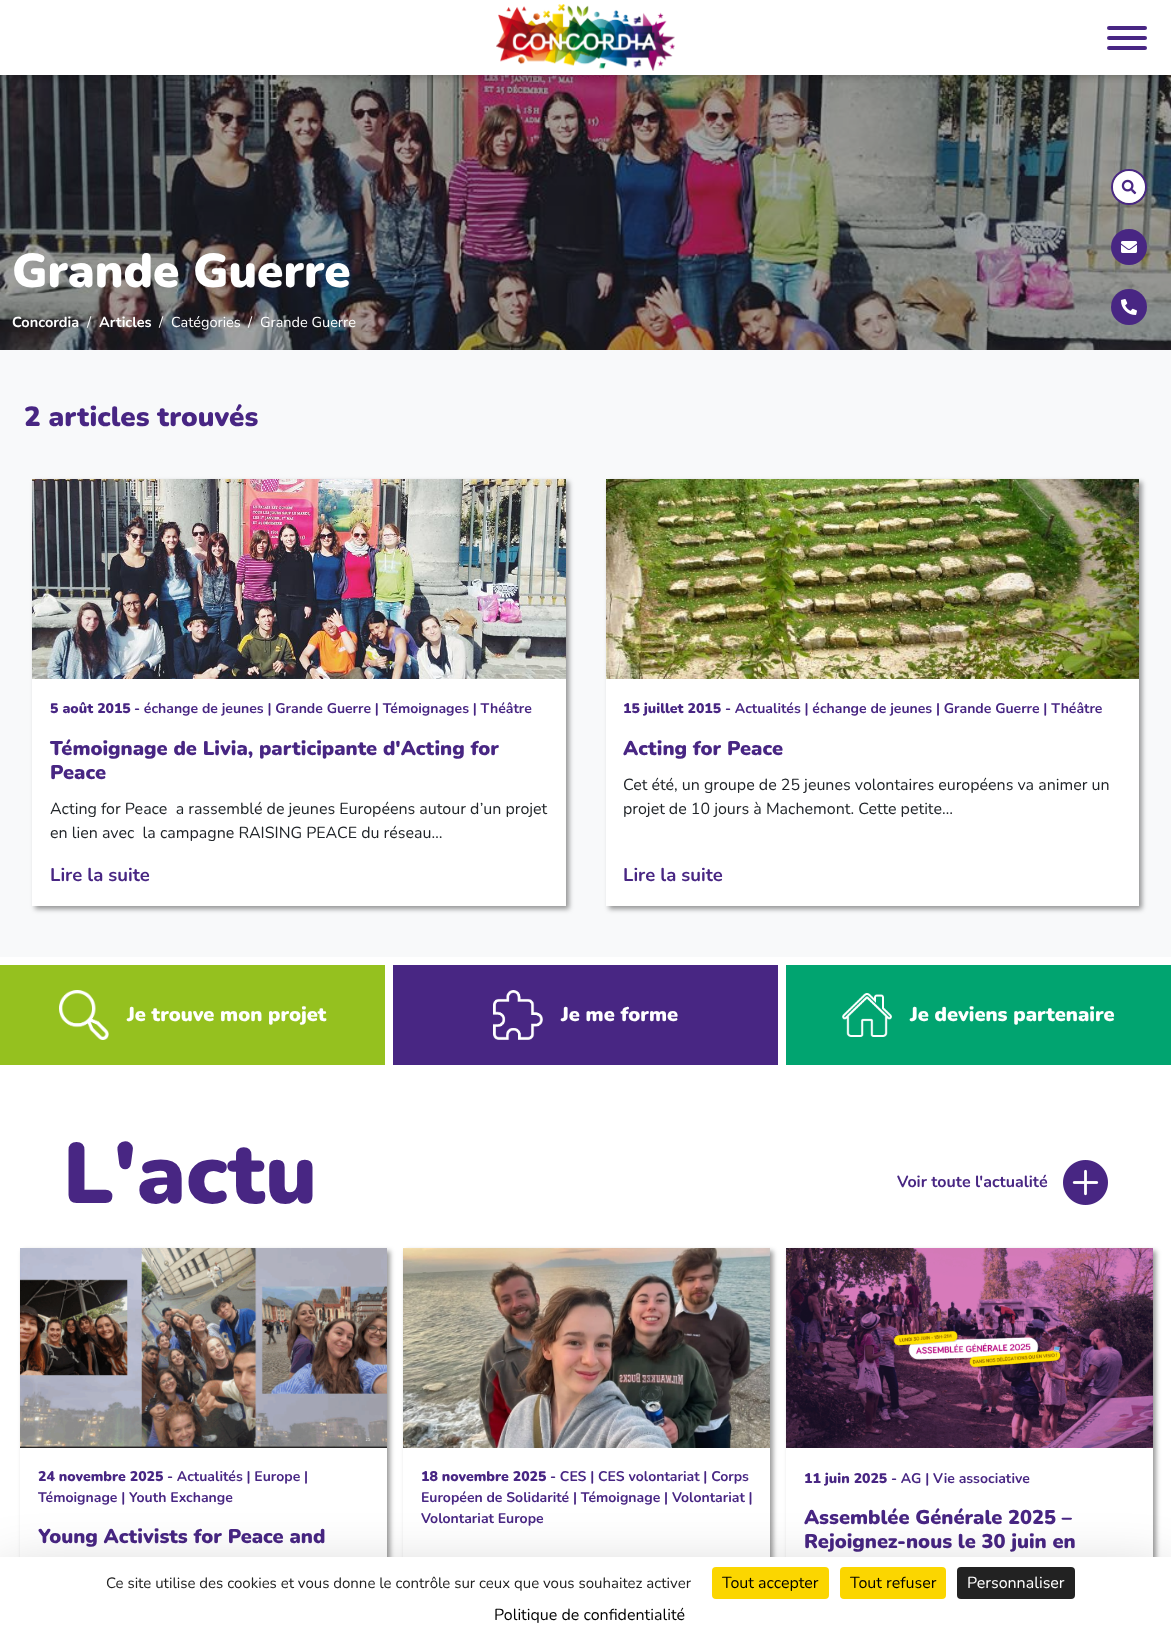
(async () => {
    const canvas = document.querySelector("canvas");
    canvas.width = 1171;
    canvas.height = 1641;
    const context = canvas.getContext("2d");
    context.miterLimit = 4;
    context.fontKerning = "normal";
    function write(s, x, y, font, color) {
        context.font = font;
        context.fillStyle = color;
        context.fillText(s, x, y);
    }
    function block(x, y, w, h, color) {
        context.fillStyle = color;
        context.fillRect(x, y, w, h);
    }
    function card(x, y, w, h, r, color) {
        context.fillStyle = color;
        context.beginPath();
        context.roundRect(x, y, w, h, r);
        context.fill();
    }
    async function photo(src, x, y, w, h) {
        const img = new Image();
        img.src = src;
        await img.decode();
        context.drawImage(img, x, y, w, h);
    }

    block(0, 0, 1171, 1641, "rgb(255, 255, 255)");
    await photo("media/2.png", 0, 75, 1171, 275);
    context.save();
    context.beginPath();
    context.rect(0, 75, 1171, 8);
    context.clip();
    context.fillStyle = "rgba(0, 0, 0, 0.35)";
    context.filter = "blur(5px)";
    context.beginPath();
    context.rect(0, 0, 1171, 75);
    context.fill();
    context.filter = "none";
    context.restore();
    await photo("media/1.png", 496, 4, 179, 67);
    card(1107, 36, 40, 4, 2, "rgb(72, 38, 131)");
    card(1107, 26, 40, 4, 2, "rgb(72, 38, 131)");
    card(1107, 46, 40, 4, 2, "rgb(72, 38, 131)");
    write("Grande Guerre", 12, 287, "900 47.5px Nunito", "rgb(255, 255, 255)");
    write("Concordia", 12, 327, "bold 14.5px Nunito", "rgb(255, 255, 255)");
    write("/", 87, 327, "14.5px Nunito", "rgb(255, 255, 255)");
    write("Articles", 99, 327, "bold 14.5px Nunito", "rgb(255, 255, 255)");
    write("/", 159, 327, "14.5px Nunito", "rgb(255, 255, 255)");
    write("Catégories", 171, 327, "14.5px Nunito", "rgb(255, 255, 255)");
    write("/", 248, 327, "14.5px Nunito", "rgb(255, 255, 255)");
    write("Grande Guerre", 260, 327, "14.5px Nunito", "rgb(255, 255, 255)");
    context.beginPath();
    context.arc(1129, 187, 17, 0, Math.PI * 2);
    context.strokeStyle = "rgb(72, 38, 131)";
    context.lineWidth = 2;
    context.stroke();
    context.beginPath();
    context.arc(1129, 187, 16, 0, Math.PI * 2);
    context.fill();
    await photo("media/3.png", 1121, 179, 16, 16);
    context.fillStyle = "rgb(72, 38, 131)";
    context.beginPath();
    context.arc(1129, 247, 18, 0, Math.PI * 2);
    context.fill();
    await photo("media/4.png", 1121, 241, 16, 12);
    context.beginPath();
    context.arc(1129, 307, 18, 0, Math.PI * 2);
    context.fill();
    await photo("media/5.png", 1121, 299, 16, 16);
    block(0, 350, 1171, 607, "rgb(248, 249, 250)");
    write("2 articles trouvés", 24, 426, "900 27.75px Nunito", "rgb(72, 38, 131)");
    context.fillStyle = "rgba(0, 0, 0, 0.4)";
    context.filter = "blur(2.5px)";
    context.beginPath();
    context.rect(35, 482, 534, 427);
    context.fill();
    context.filter = "none";
    block(32, 679, 534, 227, "rgb(255, 255, 255)");
    await photo("media/6.png", 32, 479, 534, 200);
    write("5 août 2015", 50, 713, "900 14px Nunito", "rgb(72, 38, 131)");
    write("- échange de jeunes | Grande Guerre | Témoignages | Théâtre", 134, 713, "bold 14px Nunito", "rgb(72, 38, 131)");
    write("Témoignage de Livia, participante d'Acting for", 50, 755, "900 20px Nunito", "rgb(72, 38, 131)");
    write("Peace", 50, 779, "900 20px Nunito", "rgb(72, 38, 131)");
    write("Acting for Peace  a rassemblé de jeunes Européens autour d’un projet", 50, 814, "16px Nunito", "rgb(33, 37, 41)");
    write("en lien avec  la campagne RAISING PEACE du réseau…", 50, 838, "16px Nunito", "rgb(33, 37, 41)");
    write("Lire la suite", 50, 881, "bold 18.5px Nunito", "rgb(72, 38, 131)");
    context.fillStyle = "rgba(0, 0, 0, 0.4)";
    context.filter = "blur(2.5px)";
    context.beginPath();
    context.rect(609, 482, 533, 427);
    context.fill();
    context.filter = "none";
    block(606, 679, 533, 227, "rgb(255, 255, 255)");
    await photo("media/7.png", 606, 479, 533, 200);
    write("15 juillet 2015", 623, 713, "900 14px Nunito", "rgb(72, 38, 131)");
    write("- Actualités | échange de jeunes | Grande Guerre | Théâtre", 725, 713, "bold 14px Nunito", "rgb(72, 38, 131)");
    write("Acting for Peace", 623, 755, "900 20px Nunito", "rgb(72, 38, 131)");
    write("Cet été, un groupe de 25 jeunes volontaires européens va animer un", 623, 790, "16px Nunito", "rgb(33, 37, 41)");
    write("projet de 10 jours à Machemont. Cette petite…", 623, 814, "16px Nunito", "rgb(33, 37, 41)");
    write("Lire la suite", 623, 881, "bold 18.5px Nunito", "rgb(72, 38, 131)");
    block(0, 965, 385, 100, "rgb(149, 193, 31)");
    await photo("media/8.png", 59, 990, 50, 50);
    write("Je trouve mon projet", 127, 1021, "900 20px Nunito", "rgb(255, 255, 255)");
    block(393, 965, 385, 100, "rgb(72, 38, 131)");
    await photo("media/9.png", 493, 990, 50, 50);
    write("Je me forme", 561, 1021, "900 20px Nunito", "rgb(255, 255, 255)");
    block(786, 965, 385, 100, "rgb(1, 164, 112)");
    await photo("media/10.png", 842, 993, 50, 44);
    write("Je deviens partenaire", 910, 1021, "900 20px Nunito", "rgb(255, 255, 255)");
    write("L'actu", 63, 1203, "900 86.5px Nunito", "rgb(72, 38, 131)");
    write("Voir toute l'actualité", 897, 1187, "bold 16px Nunito", "rgb(72, 38, 131)");
    await photo("media/11.png", 1063, 1160, 45, 45);
    context.save();
    context.beginPath();
    context.moveTo(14, 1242);
    context.lineTo(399, 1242);
    context.lineTo(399, 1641);
    context.lineTo(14, 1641);
    context.closePath();
    context.moveTo(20, 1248);
    context.lineTo(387, 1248);
    context.lineTo(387, 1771);
    context.lineTo(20, 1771);
    context.closePath();
    context.clip("evenodd");
    context.fillStyle = "rgba(0, 0, 0, 0.4)";
    context.filter = "blur(2.5px)";
    context.beginPath();
    context.rect(23, 1251, 367, 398);
    context.fill();
    context.filter = "none";
    context.restore();
    await photo("media/12.png", 20, 1248, 367, 200);
    write("24 novembre 2025", 38, 1481, "900 14px Nunito", "rgb(72, 38, 131)");
    write("- Actualités | Europe |", 167, 1481, "bold 14px Nunito", "rgb(72, 38, 131)");
    write("Témoignage | Youth Exchange", 38, 1502, "bold 14px Nunito", "rgb(72, 38, 131)");
    write("Young Activists for Peace and", 38, 1543, "900 20px Nunito", "rgb(72, 38, 131)");
    context.save();
    context.beginPath();
    context.moveTo(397, 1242);
    context.lineTo(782, 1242);
    context.lineTo(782, 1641);
    context.lineTo(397, 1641);
    context.closePath();
    context.moveTo(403, 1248);
    context.lineTo(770, 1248);
    context.lineTo(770, 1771);
    context.lineTo(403, 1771);
    context.closePath();
    context.clip("evenodd");
    context.fillStyle = "rgba(0, 0, 0, 0.4)";
    context.filter = "blur(2.5px)";
    context.beginPath();
    context.rect(406, 1251, 367, 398);
    context.fill();
    context.filter = "none";
    context.restore();
    await photo("media/13.png", 403, 1248, 367, 200);
    write("18 novembre 2025", 421, 1481, "900 14px Nunito", "rgb(72, 38, 131)");
    write("- CES | CES volontariat | Corps", 550, 1481, "bold 14px Nunito", "rgb(72, 38, 131)");
    write("Européen de Solidarité | Témoignage | Volontariat |", 421, 1502, "bold 14px Nunito", "rgb(72, 38, 131)");
    write("Volontariat Europe", 421, 1523, "bold 14px Nunito", "rgb(72, 38, 131)");
    context.save();
    context.beginPath();
    context.moveTo(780, 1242);
    context.lineTo(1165, 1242);
    context.lineTo(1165, 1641);
    context.lineTo(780, 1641);
    context.closePath();
    context.moveTo(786, 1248);
    context.lineTo(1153, 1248);
    context.lineTo(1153, 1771);
    context.lineTo(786, 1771);
    context.closePath();
    context.clip("evenodd");
    context.fillStyle = "rgba(0, 0, 0, 0.4)";
    context.filter = "blur(2.5px)";
    context.beginPath();
    context.rect(789, 1251, 367, 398);
    context.fill();
    context.filter = "none";
    context.restore();
    await photo("media/14.png", 786, 1248, 367, 200);
    write("11 juin 2025", 804, 1483, "900 14px Nunito", "rgb(72, 38, 131)");
    write("- AG | Vie associative", 891, 1483, "bold 14px Nunito", "rgb(72, 38, 131)");
    write("Assemblée Générale 2025 –", 804, 1524, "900 20px Nunito", "rgb(72, 38, 131)");
    write("Rejoignez-nous le 30 juin en", 804, 1548, "900 20px Nunito", "rgb(72, 38, 131)");
    context.fillStyle = "rgba(0, 0, 0, 0.25)";
    context.filter = "blur(30px)";
    context.beginPath();
    context.rect(0, 1577, 1171, 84);
    context.fill();
    context.filter = "none";
    block(0, 1557, 1171, 84, "rgb(255, 255, 255)");
    write("Ce site utilise des cookies et vous donne le contrôle sur ceux que vous souhaitez activer", 106, 1588, "15px Nunito", "rgb(34, 34, 34)");
    card(712, 1567, 117, 32, 4, "rgb(251, 214, 0)");
    write("Tout accepter", 722, 1588, "16px Nunito", "rgb(0, 0, 0)");
    card(840, 1567, 106, 32, 4, "rgb(251, 214, 0)");
    write("Tout refuser", 850, 1588, "16px Nunito", "rgb(0, 0, 0)");
    card(957, 1567, 118, 32, 4, "rgb(34, 34, 34)");
    write("Personnaliser", 967, 1588, "16px Nunito", "rgb(255, 255, 255)");
    write("Politique de confidentialité", 494, 1620, "16px Nunito", "rgb(0, 0, 0)");
})();
